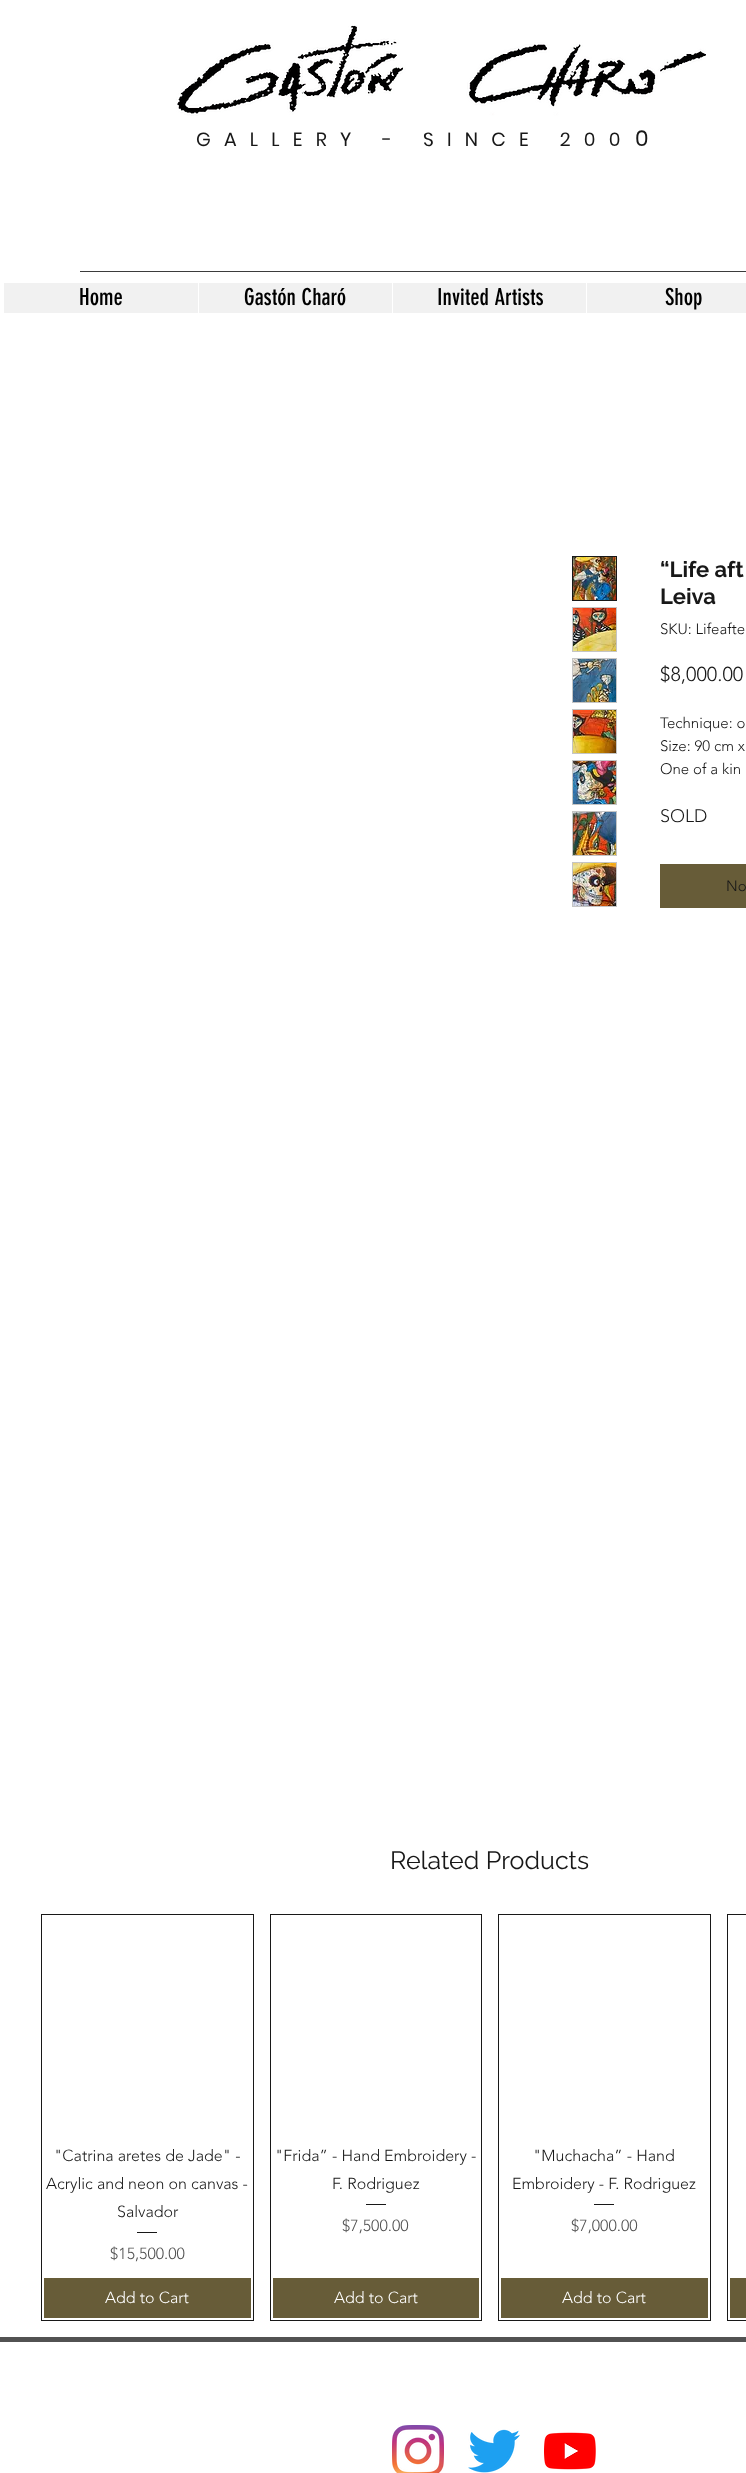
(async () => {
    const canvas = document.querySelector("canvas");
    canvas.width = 746;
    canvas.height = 2473;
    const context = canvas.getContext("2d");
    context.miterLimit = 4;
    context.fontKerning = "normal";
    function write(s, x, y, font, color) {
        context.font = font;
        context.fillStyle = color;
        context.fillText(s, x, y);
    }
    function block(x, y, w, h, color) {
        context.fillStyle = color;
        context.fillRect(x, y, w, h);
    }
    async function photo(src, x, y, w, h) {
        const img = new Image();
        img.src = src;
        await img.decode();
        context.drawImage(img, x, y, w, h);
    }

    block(0, 0, 746, 2473, "rgb(255, 255, 255)");
    await photo("media/1.png", 176, 25, 530, 91);
    context.letterSpacing = "13.25px";
    write("GALLERY - SINCE 200", 196, 146, "19px Poppins", "rgb(24, 24, 24)");
    context.letterSpacing = "15px";
    write("0", 635, 146, "22px Poppins", "rgb(24, 24, 24)");
    block(80, 271, 666, 1, "rgb(59, 59, 59)");
    block(4, 283, 742, 30, "rgb(241, 241, 241)");
    context.letterSpacing = "0px";
    write("Home", 79, 305, "23px 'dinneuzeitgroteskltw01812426'", "rgb(0, 0, 0)");
    block(198, 283, 1, 30, "rgb(255, 255, 255)");
    write("Gastón Charó", 244, 305, "23px 'dinneuzeitgroteskltw01812426'", "rgb(0, 0, 0)");
    block(392, 283, 1, 30, "rgb(255, 255, 255)");
    write("Invited Artists", 437, 305, "23px 'dinneuzeitgroteskltw01812426'", "rgb(0, 0, 0)");
    block(586, 283, 1, 30, "rgb(255, 255, 255)");
    write("Shop", 665, 305, "23px 'dinneuzeitgroteskltw01812426'", "rgb(0, 0, 0)");
    context.strokeStyle = "rgb(24, 24, 24)";
    context.strokeRect(572.5, 556.5, 44, 44);
    await photo("media/2.png", 573, 557, 43, 43);
    block(572, 607, 45, 45, "rgb(197, 197, 197)");
    await photo("media/3.png", 573, 608, 43, 43);
    block(572, 658, 45, 45, "rgb(197, 197, 197)");
    await photo("media/4.png", 573, 659, 43, 43);
    block(572, 709, 45, 45, "rgb(197, 197, 197)");
    await photo("media/5.png", 573, 710, 43, 43);
    block(572, 760, 45, 45, "rgb(197, 197, 197)");
    await photo("media/6.png", 573, 761, 43, 43);
    block(572, 811, 45, 45, "rgb(197, 197, 197)");
    await photo("media/7.png", 573, 812, 43, 43);
    block(572, 862, 45, 45, "rgb(197, 197, 197)");
    await photo("media/8.png", 573, 863, 43, 43);
    write("“Life aft", 660, 577, "bold 22px Raleway", "rgb(24, 24, 24)");
    write("Leiva", 660, 604, "bold 22px Raleway", "rgb(24, 24, 24)");
    write("SKU: Lifeafte", 660, 634, "300 15px 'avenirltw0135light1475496'", "rgb(24, 24, 24)");
    write("$8,000.00", 660, 681, "300 20px 'avenirltw0135light1475496'", "rgb(24, 24, 24)");
    write("Technique: o", 660, 728, "300 15px 'avenirltw0135light1475496'", "rgb(24, 24, 24)");
    write("Size: 90 cm x", 660, 751, "300 15px 'avenirltw0135light1475496'", "rgb(24, 24, 24)");
    write("One of a kin", 660, 774, "300 15px 'avenirltw0135light1475496'", "rgb(24, 24, 24)");
    write("SOLD", 660, 822, "300 18px 'avenirltw0135light1475496'", "rgb(24, 24, 24)");
    block(660, 864, 86, 44, "rgb(103, 92, 56)");
    write("No", 726, 891, "300 15px 'avenirltw0135light1475496'", "rgb(24, 24, 24)");
    write("Related Products", 390, 1869, "25px Raleway", "rgb(24, 24, 24)");
    context.strokeRect(41.5, 1914.5, 212, 406);
    write("\"Catrina aretes de Jade\" -", 54, 2161, "300 16px 'avenirltw0135light1475496'", "rgb(24, 24, 24)");
    write("Acrylic and neon on canvas -", 46, 2189, "300 16px 'avenirltw0135light1475496'", "rgb(24, 24, 24)");
    write("Salvador", 117, 2217, "300 16px 'avenirltw0135light1475496'", "rgb(24, 24, 24)");
    block(137, 2232, 20, 1, "rgb(24, 24, 24)");
    write("$15,500.00", 110, 2259, "300 16px 'avenirltw0135light1475496'", "rgb(82, 82, 82)");
    block(44, 2278, 207, 40, "rgb(103, 92, 56)");
    write("Add to Cart", 105, 2303, "300 16px 'avenirltw0135light1475496'", "rgb(255, 255, 255)");
    context.strokeRect(270.5, 1914.5, 211, 406);
    write("\"Frida” - Hand Embroidery -", 275, 2161, "300 16px 'avenirltw0135light1475496'", "rgb(24, 24, 24)");
    write("F. Rodriguez", 332, 2189, "300 16px 'avenirltw0135light1475496'", "rgb(24, 24, 24)");
    block(366, 2204, 20, 1, "rgb(24, 24, 24)");
    write("$7,500.00", 342, 2231, "300 16px 'avenirltw0135light1475496'", "rgb(82, 82, 82)");
    block(273, 2278, 206, 40, "rgb(103, 92, 56)");
    write("Add to Cart", 334, 2303, "300 16px 'avenirltw0135light1475496'", "rgb(255, 255, 255)");
    context.strokeRect(498.5, 1914.5, 212, 406);
    write("\"Muchacha” - Hand", 533, 2161, "300 16px 'avenirltw0135light1475496'", "rgb(24, 24, 24)");
    write("Embroidery - F. Rodriguez", 512, 2189, "300 16px 'avenirltw0135light1475496'", "rgb(24, 24, 24)");
    block(594, 2204, 20, 1, "rgb(24, 24, 24)");
    write("$7,000.00", 571, 2231, "300 16px 'avenirltw0135light1475496'", "rgb(82, 82, 82)");
    block(501, 2278, 207, 40, "rgb(103, 92, 56)");
    write("Add to Cart", 562, 2303, "300 16px 'avenirltw0135light1475496'", "rgb(255, 255, 255)");
    context.strokeRect(727.5, 1914.5, 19, 406);
    block(730, 2278, 16, 40, "rgb(103, 92, 56)");
    block(0, 2337, 746, 5, "rgb(82, 82, 82)");
    await photo("media/9.png", 392, 2425, 52, 48);
    await photo("media/10.png", 468, 2429, 52, 44);
    await photo("media/11.png", 544, 2432, 52, 38);
})();
